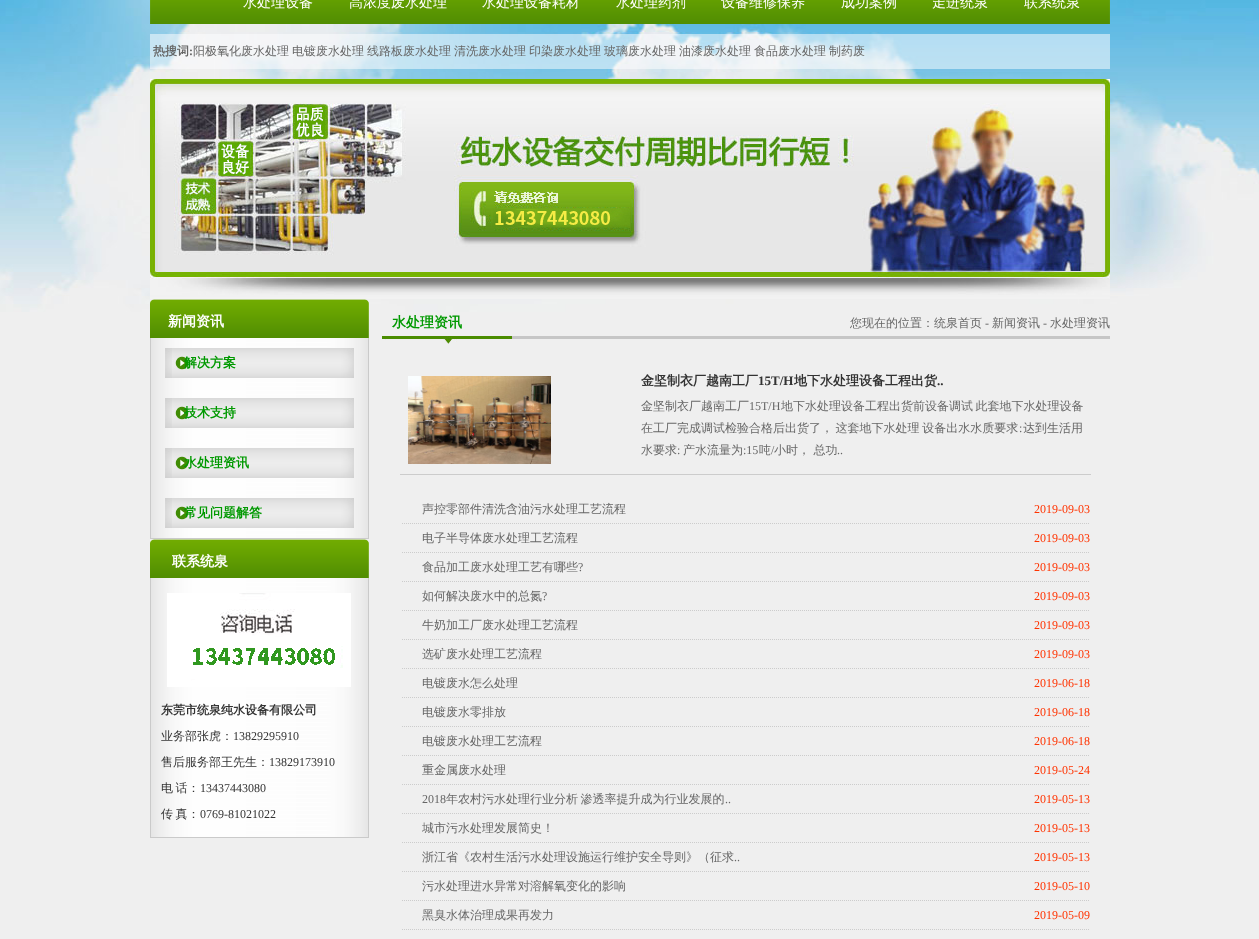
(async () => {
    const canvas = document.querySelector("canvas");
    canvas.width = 1259;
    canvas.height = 939;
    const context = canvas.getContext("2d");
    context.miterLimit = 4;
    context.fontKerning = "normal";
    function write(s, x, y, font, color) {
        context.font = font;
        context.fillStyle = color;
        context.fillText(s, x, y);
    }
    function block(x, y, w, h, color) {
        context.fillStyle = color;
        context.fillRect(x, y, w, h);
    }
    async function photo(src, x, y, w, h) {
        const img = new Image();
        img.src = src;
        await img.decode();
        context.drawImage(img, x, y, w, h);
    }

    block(0, 0, 1259, 939, "rgb(239, 239, 239)");
    await photo("media/1.png", 0, 0, 1259, 312);
    await photo("media/2.png", 150, 0, 960, 24);
    write("水处理设备", 243, 7, "500 14px WenQuanYi Zen Hei", "rgb(255, 255, 255)");
    write("高浓度废水处理", 349, 7, "500 14px WenQuanYi Zen Hei", "rgb(255, 255, 255)");
    write("水处理设备耗材", 482, 7, "500 14px WenQuanYi Zen Hei", "rgb(255, 255, 255)");
    write("水处理药剂", 616, 7, "500 14px WenQuanYi Zen Hei", "rgb(255, 255, 255)");
    write("设备维修保养", 721, 7, "500 14px WenQuanYi Zen Hei", "rgb(255, 255, 255)");
    write("成功案例", 841, 7, "500 14px WenQuanYi Zen Hei", "rgb(255, 255, 255)");
    write("走进统泉", 932, 7, "500 14px WenQuanYi Zen Hei", "rgb(255, 255, 255)");
    write("联系统泉", 1024, 7, "500 14px WenQuanYi Zen Hei", "rgb(255, 255, 255)");
    block(150, 34, 960, 35, "rgba(253, 253, 255, 0.52)");
    write("热搜词", 153, 55, "bold 12px WenQuanYi Zen Hei", "rgb(102, 102, 102)");
    write(":", 189, 55, "bold 12px Liberation Serif", "rgb(102, 102, 102)");
    write("阳极氧化废水处理", 193, 55, "500 12px WenQuanYi Zen Hei", "rgb(102, 102, 102)");
    write("电镀废水处理", 292, 55, "500 12px WenQuanYi Zen Hei", "rgb(102, 102, 102)");
    write("线路板废水处理", 367, 55, "500 12px WenQuanYi Zen Hei", "rgb(102, 102, 102)");
    write("清洗废水处理", 454, 55, "500 12px WenQuanYi Zen Hei", "rgb(102, 102, 102)");
    write("印染废水处理", 529, 55, "500 12px WenQuanYi Zen Hei", "rgb(102, 102, 102)");
    write("玻璃废水处理", 604, 55, "500 12px WenQuanYi Zen Hei", "rgb(102, 102, 102)");
    write("油漆废水处理", 679, 55, "500 12px WenQuanYi Zen Hei", "rgb(102, 102, 102)");
    write("食品废水处理", 754, 55, "500 12px WenQuanYi Zen Hei", "rgb(102, 102, 102)");
    write("制药废", 829, 55, "500 12px WenQuanYi Zen Hei", "rgb(102, 102, 102)");
    await photo("media/3.png", 150, 79, 960, 220);
    await photo("media/4.png", 150, 299, 219, 39);
    write("新闻资讯", 168, 326, "bold 14px WenQuanYi Zen Hei", "rgb(255, 255, 255)");
    await photo("media/5.png", 151, 338, 217, 200);
    block(368, 338, 1, 201, "rgb(202, 202, 202)");
    block(150, 538, 219, 1, "rgb(202, 202, 202)");
    block(150, 338, 1, 201, "rgb(202, 202, 202)");
    await photo("media/6.png", 165, 348, 189, 30);
    write("解决方案", 184, 367, "bold 13px WenQuanYi Zen Hei", "rgb(0, 153, 0)");
    await photo("media/6.png", 165, 398, 189, 30);
    write("技术支持", 184, 417, "bold 13px WenQuanYi Zen Hei", "rgb(0, 153, 0)");
    await photo("media/6.png", 165, 448, 189, 30);
    write("水处理资讯", 184, 467, "bold 13px WenQuanYi Zen Hei", "rgb(0, 153, 0)");
    await photo("media/6.png", 165, 498, 189, 30);
    write("常见问题解答", 184, 517, "bold 13px WenQuanYi Zen Hei", "rgb(0, 153, 0)");
    await photo("media/4.png", 150, 539, 219, 39);
    write("联系统泉", 172, 566, "bold 14px WenQuanYi Zen Hei", "rgb(255, 255, 255)");
    await photo("media/7.png", 151, 578, 217, 259);
    block(368, 578, 1, 260, "rgb(202, 202, 202)");
    block(150, 837, 219, 1, "rgb(202, 202, 202)");
    block(150, 578, 1, 260, "rgb(202, 202, 202)");
    await photo("media/8.png", 167, 593, 184, 94);
    write("东莞市统泉纯水设备有限公司", 161, 714, "bold 12px WenQuanYi Zen Hei", "rgb(51, 51, 51)");
    write("业务部张虎：", 161, 740, "500 12px WenQuanYi Zen Hei", "rgb(51, 51, 51)");
    write("13829295910", 233, 740, "12px Liberation Serif", "rgb(51, 51, 51)");
    write("售后服务部王先生：", 161, 766, "500 12px WenQuanYi Zen Hei", "rgb(51, 51, 51)");
    write("13829173910", 269, 766, "12px Liberation Serif", "rgb(51, 51, 51)");
    context.wordSpacing = "-1px";
    write("电 话：", 161, 792, "500 12px WenQuanYi Zen Hei", "rgb(51, 51, 51)");
    context.wordSpacing = "0px";
    write("13437443080", 200, 792, "12px Liberation Serif", "rgb(51, 51, 51)");
    context.wordSpacing = "-1px";
    write("传 真：", 161, 818, "500 12px WenQuanYi Zen Hei", "rgb(51, 51, 51)");
    context.wordSpacing = "0px";
    write("0769-81021022", 200, 818, "12px Liberation Serif", "rgb(51, 51, 51)");
    await photo("media/9.png", 382, 336, 728, 8);
    write("水处理资讯", 392, 327, "bold 14px WenQuanYi Zen Hei", "rgb(0, 153, 0)");
    write("您现在的位置：统泉首页", 850, 327, "500 12px WenQuanYi Zen Hei", "rgb(102, 102, 102)");
    write("-", 985, 327, "12px Liberation Serif", "rgb(102, 102, 102)");
    write("新闻资讯", 992, 327, "500 12px WenQuanYi Zen Hei", "rgb(102, 102, 102)");
    write("-", 1043, 327, "12px Liberation Serif", "rgb(102, 102, 102)");
    write("水处理资讯", 1050, 327, "500 12px WenQuanYi Zen Hei", "rgb(102, 102, 102)");
    block(400, 474, 691, 1, "rgb(204, 204, 204)");
    await photo("media/10.png", 408, 376, 143, 88);
    write("金坚制衣厂越南工厂", 641, 385, "bold 13px WenQuanYi Zen Hei", "rgb(51, 51, 51)");
    write("15T/H", 758, 385, "bold 13px Liberation Serif", "rgb(51, 51, 51)");
    write("地下水处理设备工程出货", 794, 385, "bold 13px WenQuanYi Zen Hei", "rgb(51, 51, 51)");
    write("..", 937, 385, "bold 13px Liberation Serif", "rgb(51, 51, 51)");
    write("金坚制衣厂越南工厂", 641, 410, "500 12px WenQuanYi Zen Hei", "rgb(102, 102, 102)");
    write("15T/H", 749, 410, "12px Liberation Serif", "rgb(102, 102, 102)");
    context.wordSpacing = "-1px";
    write("地下水处理设备工程出货前设备调试 此套地下水处理设备", 781, 410, "500 12px WenQuanYi Zen Hei", "rgb(102, 102, 102)");
    write("在工厂完成调试检验合格后出货了， 这套地下水处理 设备出水水质要求", 641, 432, "500 12px WenQuanYi Zen Hei", "rgb(102, 102, 102)");
    context.wordSpacing = "0px";
    write(":", 1019, 432, "12px Liberation Serif", "rgb(102, 102, 102)");
    write("达到生活用", 1023, 432, "500 12px WenQuanYi Zen Hei", "rgb(102, 102, 102)");
    write("水要求", 641, 454, "500 12px WenQuanYi Zen Hei", "rgb(102, 102, 102)");
    write(":", 677, 454, "12px Liberation Serif", "rgb(102, 102, 102)");
    write("产水流量为", 683, 454, "500 12px WenQuanYi Zen Hei", "rgb(102, 102, 102)");
    write(":15", 743, 454, "12px Liberation Serif", "rgb(102, 102, 102)");
    write("吨", 759, 454, "500 12px WenQuanYi Zen Hei", "rgb(102, 102, 102)");
    write("/", 771, 454, "12px Liberation Serif", "rgb(102, 102, 102)");
    write("小时， 总功", 774, 454, "500 12px WenQuanYi Zen Hei", "rgb(102, 102, 102)");
    write("..", 837, 454, "12px Liberation Serif", "rgb(102, 102, 102)");
    context.beginPath();
    context.moveTo(402, 523.5);
    context.lineTo(1090, 523.5);
    context.strokeStyle = "rgb(204, 204, 204)";
    context.setLineDash([1, 1]);
    context.stroke();
    write("声控零部件清洗含油污水处理工艺流程", 422, 513, "500 12px WenQuanYi Zen Hei", "rgb(102, 102, 102)");
    write("2019-09-03", 1034, 513, "12px Liberation Serif", "rgb(255, 51, 0)");
    context.beginPath();
    context.moveTo(402, 552.5);
    context.lineTo(1090, 552.5);
    context.stroke();
    write("电子半导体废水处理工艺流程", 422, 542, "500 12px WenQuanYi Zen Hei", "rgb(102, 102, 102)");
    write("2019-09-03", 1034, 542, "12px Liberation Serif", "rgb(255, 51, 0)");
    context.beginPath();
    context.moveTo(402, 581.5);
    context.lineTo(1090, 581.5);
    context.stroke();
    write("食品加工废水处理工艺有哪些", 422, 571, "500 12px WenQuanYi Zen Hei", "rgb(102, 102, 102)");
    write("?", 578, 571, "12px Liberation Serif", "rgb(102, 102, 102)");
    write("2019-09-03", 1034, 571, "12px Liberation Serif", "rgb(255, 51, 0)");
    context.beginPath();
    context.moveTo(402, 610.5);
    context.lineTo(1090, 610.5);
    context.stroke();
    write("如何解决废水中的总氮", 422, 600, "500 12px WenQuanYi Zen Hei", "rgb(102, 102, 102)");
    write("?", 542, 600, "12px Liberation Serif", "rgb(102, 102, 102)");
    write("2019-09-03", 1034, 600, "12px Liberation Serif", "rgb(255, 51, 0)");
    context.beginPath();
    context.moveTo(402, 639.5);
    context.lineTo(1090, 639.5);
    context.stroke();
    write("牛奶加工厂废水处理工艺流程", 422, 629, "500 12px WenQuanYi Zen Hei", "rgb(102, 102, 102)");
    write("2019-09-03", 1034, 629, "12px Liberation Serif", "rgb(255, 51, 0)");
    context.beginPath();
    context.moveTo(402, 668.5);
    context.lineTo(1090, 668.5);
    context.stroke();
    write("选矿废水处理工艺流程", 422, 658, "500 12px WenQuanYi Zen Hei", "rgb(102, 102, 102)");
    write("2019-09-03", 1034, 658, "12px Liberation Serif", "rgb(255, 51, 0)");
    context.beginPath();
    context.moveTo(402, 697.5);
    context.lineTo(1090, 697.5);
    context.stroke();
    write("电镀废水怎么处理", 422, 687, "500 12px WenQuanYi Zen Hei", "rgb(102, 102, 102)");
    write("2019-06-18", 1034, 687, "12px Liberation Serif", "rgb(255, 51, 0)");
    context.beginPath();
    context.moveTo(402, 726.5);
    context.lineTo(1090, 726.5);
    context.stroke();
    write("电镀废水零排放", 422, 716, "500 12px WenQuanYi Zen Hei", "rgb(102, 102, 102)");
    write("2019-06-18", 1034, 716, "12px Liberation Serif", "rgb(255, 51, 0)");
    context.beginPath();
    context.moveTo(402, 755.5);
    context.lineTo(1090, 755.5);
    context.stroke();
    write("电镀废水处理工艺流程", 422, 745, "500 12px WenQuanYi Zen Hei", "rgb(102, 102, 102)");
    write("2019-06-18", 1034, 745, "12px Liberation Serif", "rgb(255, 51, 0)");
    context.beginPath();
    context.moveTo(402, 784.5);
    context.lineTo(1090, 784.5);
    context.stroke();
    write("重金属废水处理", 422, 774, "500 12px WenQuanYi Zen Hei", "rgb(102, 102, 102)");
    write("2019-05-24", 1034, 774, "12px Liberation Serif", "rgb(255, 51, 0)");
    context.beginPath();
    context.moveTo(402, 813.5);
    context.lineTo(1090, 813.5);
    context.stroke();
    write("2018", 422, 803, "12px Liberation Serif", "rgb(102, 102, 102)");
    context.wordSpacing = "-1px";
    write("年农村污水处理行业分析 渗透率提升成为行业发展的", 446, 803, "500 12px WenQuanYi Zen Hei", "rgb(102, 102, 102)");
    context.wordSpacing = "0px";
    write("..", 725, 803, "12px Liberation Serif", "rgb(102, 102, 102)");
    write("2019-05-13", 1034, 803, "12px Liberation Serif", "rgb(255, 51, 0)");
    context.beginPath();
    context.moveTo(402, 842.5);
    context.lineTo(1090, 842.5);
    context.stroke();
    write("城市污水处理发展简史！", 422, 832, "500 12px WenQuanYi Zen Hei", "rgb(102, 102, 102)");
    write("2019-05-13", 1034, 832, "12px Liberation Serif", "rgb(255, 51, 0)");
    context.beginPath();
    context.moveTo(402, 871.5);
    context.lineTo(1090, 871.5);
    context.stroke();
    write("浙江省《农村生活污水处理设施运行维护安全导则》（征求", 422, 861, "500 12px WenQuanYi Zen Hei", "rgb(102, 102, 102)");
    write("..", 734, 861, "12px Liberation Serif", "rgb(102, 102, 102)");
    write("2019-05-13", 1034, 861, "12px Liberation Serif", "rgb(255, 51, 0)");
    context.beginPath();
    context.moveTo(402, 900.5);
    context.lineTo(1090, 900.5);
    context.stroke();
    write("污水处理进水异常对溶解氧变化的影响", 422, 890, "500 12px WenQuanYi Zen Hei", "rgb(102, 102, 102)");
    write("2019-05-10", 1034, 890, "12px Liberation Serif", "rgb(255, 51, 0)");
    context.beginPath();
    context.moveTo(402, 929.5);
    context.lineTo(1090, 929.5);
    context.stroke();
    write("黑臭水体治理成果再发力", 422, 919, "500 12px WenQuanYi Zen Hei", "rgb(102, 102, 102)");
    write("2019-05-09", 1034, 919, "12px Liberation Serif", "rgb(255, 51, 0)");
})();
